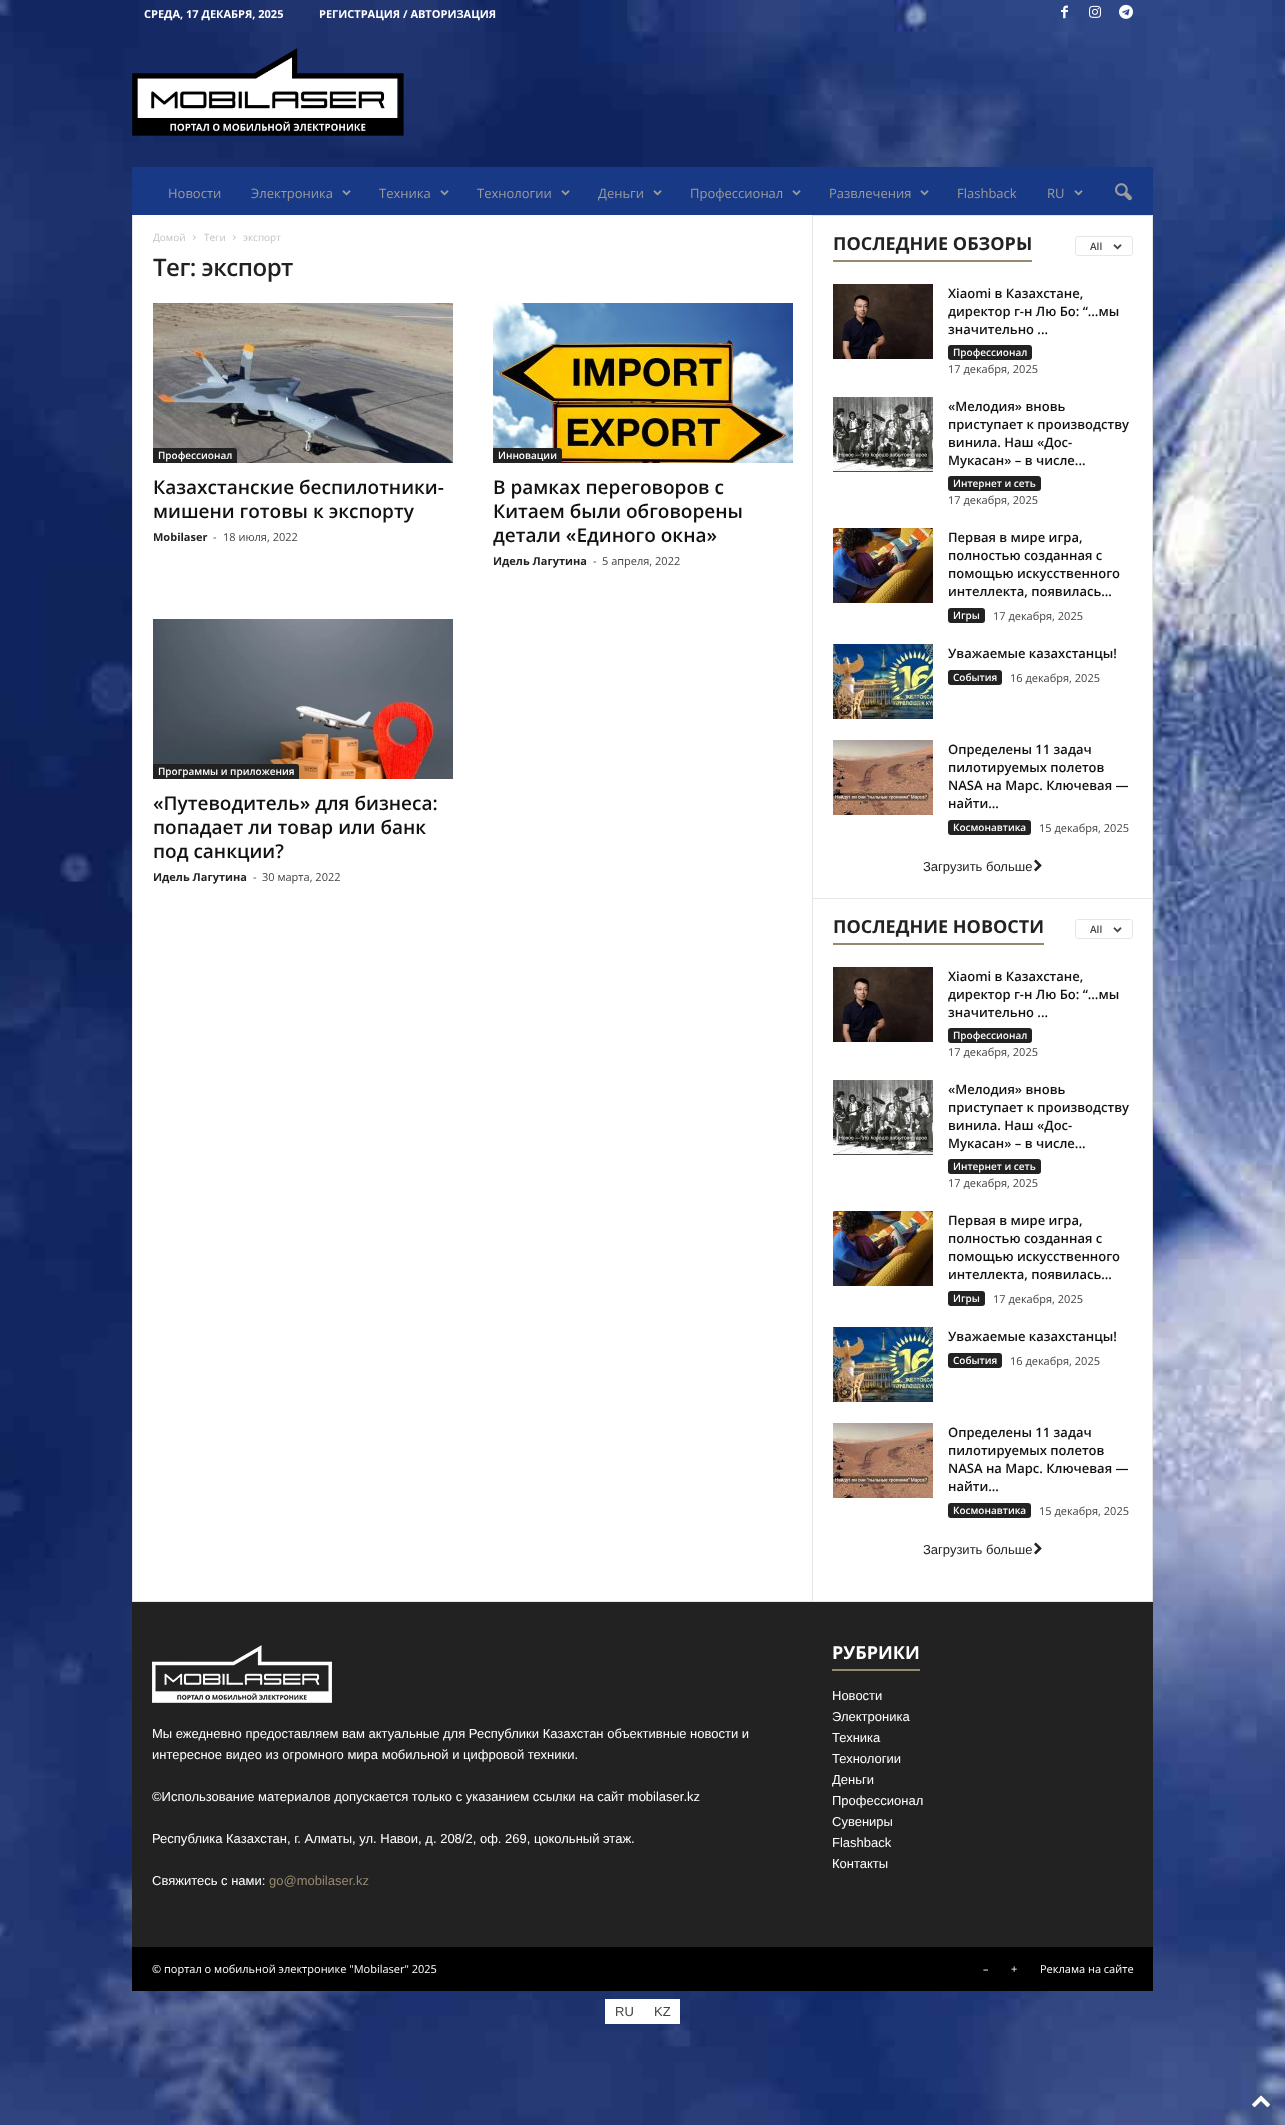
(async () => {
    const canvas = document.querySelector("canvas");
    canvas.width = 1285;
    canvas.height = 2125;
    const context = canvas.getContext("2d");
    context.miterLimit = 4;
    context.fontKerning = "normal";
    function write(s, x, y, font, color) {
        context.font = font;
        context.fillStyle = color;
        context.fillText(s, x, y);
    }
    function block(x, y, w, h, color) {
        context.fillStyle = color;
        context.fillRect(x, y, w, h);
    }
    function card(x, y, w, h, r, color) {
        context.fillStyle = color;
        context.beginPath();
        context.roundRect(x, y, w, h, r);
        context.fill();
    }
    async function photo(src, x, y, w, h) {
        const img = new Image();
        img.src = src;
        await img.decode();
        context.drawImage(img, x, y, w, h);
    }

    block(0, 0, 1285, 2125, "rgb(255, 255, 255)");
    await photo("media/1.png", 0, 0, 1285, 2125);
    write("СРЕДА, 17 ДЕКАБРЯ, 2025", 144, 18, "bold 11px Open Sans", "rgb(255, 255, 255)");
    write("РЕГИСТРАЦИЯ / АВТОРИЗАЦИЯ", 319, 18, "bold 11px Open Sans", "rgb(255, 255, 255)");
    await photo("media/2.png", 1061, 5, 7, 14);
    await photo("media/3.png", 1089, 5, 12, 13);
    await photo("media/4.png", 1119, 4, 14, 15);
    await photo("media/5.png", 132, 48, 272, 88);
    block(132, 167, 1021, 48, "rgb(24, 57, 134)");
    write("Новости", 168, 198, "13px Open Sans", "rgb(155, 155, 155)");
    write("Электроника", 251, 198, "13px Open Sans", "rgb(155, 155, 155)");
    await photo("media/6.png", 342, 190, 9, 6);
    write("Техника", 379, 198, "13px Open Sans", "rgb(155, 155, 155)");
    await photo("media/6.png", 440, 190, 9, 6);
    write("Технологии", 477, 198, "13px Open Sans", "rgb(155, 155, 155)");
    await photo("media/6.png", 561, 190, 9, 6);
    write("Деньги", 598, 198, "13px Open Sans", "rgb(155, 155, 155)");
    await photo("media/6.png", 653, 190, 9, 6);
    write("Профессионал", 690, 198, "13px Open Sans", "rgb(155, 155, 155)");
    await photo("media/6.png", 792, 190, 9, 6);
    write("Развлечения", 829, 198, "13px Open Sans", "rgb(155, 155, 155)");
    await photo("media/6.png", 920, 190, 9, 6);
    write("Flashback", 957, 198, "13px Open Sans", "rgb(155, 155, 155)");
    write("RU", 1047, 198, "13px Open Sans", "rgb(155, 155, 155)");
    await photo("media/6.png", 1074, 190, 9, 6);
    await photo("media/7.png", 1115, 183, 17, 18);
    block(133, 215, 1019, 1386, "rgb(255, 255, 255)");
    block(132, 1601, 1021, 1, "rgb(230, 230, 230)");
    block(132, 215, 1, 1386, "rgb(230, 230, 230)");
    write("Домой", 153, 241, "10px Open Sans", "rgb(195, 195, 195)");
    await photo("media/8.png", 193, 235, 3, 5);
    write("Теги", 204, 241, "10px Open Sans", "rgb(195, 195, 195)");
    await photo("media/8.png", 233, 235, 3, 5);
    write("экспорт", 243, 241, "10px Open Sans", "rgb(195, 195, 195)");
    context.letterSpacing = "-0.5px";
    write("Тег: экспорт", 153, 276, "600 24px Open Sans", "rgb(34, 34, 34)");
    await photo("media/9.png", 153, 303, 300, 160);
    context.beginPath();
    context.roundRect(153, 448, 84, 15, [0, 3, 0, 0]);
    context.fill();
    context.letterSpacing = "0px";
    write("Профессионал", 158, 459, "600 10px Open Sans", "rgb(255, 255, 255)");
    write("Казахстанские беспилотники-", 153, 494, "600 19px Open Sans", "rgb(17, 17, 17)");
    write("мишени готовы к экспорту", 153, 518, "600 19px Open Sans", "rgb(17, 17, 17)");
    write("Mobilaser", 153, 541, "bold 11px Open Sans", "rgb(34, 34, 34)");
    write("-", 213, 541, "11px Open Sans", "rgb(68, 68, 68)");
    write("18 июля, 2022", 223, 541, "11px Open Sans", "rgb(68, 68, 68)");
    await photo("media/10.png", 493, 303, 300, 160);
    context.fillStyle = "rgb(34, 34, 34)";
    context.beginPath();
    context.roundRect(493, 448, 69, 15, [0, 3, 0, 0]);
    context.fill();
    write("Инновации", 498, 459, "600 10px Open Sans", "rgb(255, 255, 255)");
    write("В рамках переговоров с", 493, 494, "600 19px Open Sans", "rgb(17, 17, 17)");
    write("Китаем были обговорены", 493, 518, "600 19px Open Sans", "rgb(17, 17, 17)");
    write("детали «Единого окна»", 493, 542, "600 19px Open Sans", "rgb(17, 17, 17)");
    write("Идель Лагутина", 493, 565, "bold 11px Open Sans", "rgb(34, 34, 34)");
    write("-", 593, 565, "11px Open Sans", "rgb(68, 68, 68)");
    write("5 апреля, 2022", 602, 565, "11px Open Sans", "rgb(68, 68, 68)");
    await photo("media/11.png", 153, 619, 300, 160);
    context.fillStyle = "rgb(34, 34, 34)";
    context.beginPath();
    context.roundRect(153, 764, 146, 15, [0, 3, 0, 0]);
    context.fill();
    write("Программы и приложения", 158, 775, "600 10px Open Sans", "rgb(255, 255, 255)");
    write("«Путеводитель» для бизнеса:", 153, 810, "600 19px Open Sans", "rgb(17, 17, 17)");
    write("попадает ли товар или банк", 153, 834, "600 19px Open Sans", "rgb(17, 17, 17)");
    write("под санкции?", 153, 858, "600 19px Open Sans", "rgb(17, 17, 17)");
    write("Идель Лагутина", 153, 881, "bold 11px Open Sans", "rgb(34, 34, 34)");
    write("-", 253, 881, "11px Open Sans", "rgb(68, 68, 68)");
    write("30 марта, 2022", 262, 881, "11px Open Sans", "rgb(68, 68, 68)");
    block(812, 215, 1, 1386, "rgb(230, 230, 230)");
    block(813, 215, 339, 1, "rgb(230, 230, 230)");
    write("ПОСЛЕДНИЕ ОБЗОРЫ", 833, 250, "bold 18px Open Sans", "rgb(34, 34, 34)");
    block(833, 260, 199, 2, "rgb(150, 137, 111)");
    context.beginPath();
    context.roundRect(1075.5, 236.5, 57, 19, 2.5);
    context.strokeStyle = "rgb(230, 230, 230)";
    context.stroke();
    write("All", 1090, 250, "600 10px Open Sans", "rgb(68, 68, 68)");
    await photo("media/12.png", 1113, 244, 9, 6);
    await photo("media/13.png", 833, 284, 100, 75);
    write("Xiaomi в Казахстане,", 948, 298, "600 13px Open Sans", "rgb(17, 17, 17)");
    write("директор г-н Лю Бо: “…мы", 948, 316, "600 13px Open Sans", "rgb(17, 17, 17)");
    write("значительно ...", 948, 334, "600 13px Open Sans", "rgb(17, 17, 17)");
    card(948, 345, 84, 15, 3, "rgb(34, 34, 34)");
    write("Профессионал", 953, 356, "600 10px Open Sans", "rgb(255, 255, 255)");
    write("17 декабря, 2025", 948, 373, "11px Open Sans", "rgb(68, 68, 68)");
    await photo("media/14.png", 833, 397, 100, 75);
    write("«Мелодия» вновь", 948, 411, "600 13px Open Sans", "rgb(17, 17, 17)");
    write("приступает к производству", 948, 429, "600 13px Open Sans", "rgb(17, 17, 17)");
    write("винила. Наш «Дос-", 948, 447, "600 13px Open Sans", "rgb(17, 17, 17)");
    write("Мукасан» – в числе...", 948, 465, "600 13px Open Sans", "rgb(17, 17, 17)");
    card(948, 476, 93, 15, 3, "rgb(34, 34, 34)");
    write("Интернет и сеть", 953, 487, "600 10px Open Sans", "rgb(255, 255, 255)");
    write("17 декабря, 2025", 948, 504, "11px Open Sans", "rgb(68, 68, 68)");
    await photo("media/15.png", 833, 528, 100, 75);
    write("Первая в мире игра,", 948, 542, "600 13px Open Sans", "rgb(17, 17, 17)");
    write("полностью созданная с", 948, 560, "600 13px Open Sans", "rgb(17, 17, 17)");
    write("помощью искусственного", 948, 578, "600 13px Open Sans", "rgb(17, 17, 17)");
    write("интеллекта, появилась...", 948, 596, "600 13px Open Sans", "rgb(17, 17, 17)");
    card(948, 608, 37, 15, 3, "rgb(34, 34, 34)");
    write("Игры", 953, 619, "600 10px Open Sans", "rgb(255, 255, 255)");
    write("17 декабря, 2025", 993, 620, "11px Open Sans", "rgb(68, 68, 68)");
    await photo("media/16.png", 833, 644, 100, 75);
    write("Уважаемые казахстанцы!", 948, 658, "600 13px Open Sans", "rgb(17, 17, 17)");
    card(948, 670, 54, 15, 3, "rgb(34, 34, 34)");
    write("События", 953, 681, "600 10px Open Sans", "rgb(255, 255, 255)");
    write("16 декабря, 2025", 1010, 682, "11px Open Sans", "rgb(68, 68, 68)");
    await photo("media/17.png", 833, 740, 100, 75);
    write("Определены 11 задач", 948, 754, "600 13px Open Sans", "rgb(17, 17, 17)");
    write("пилотируемых полетов", 948, 772, "600 13px Open Sans", "rgb(17, 17, 17)");
    write("NASA на Марс. Ключевая —", 948, 790, "600 13px Open Sans", "rgb(17, 17, 17)");
    write("найти...", 948, 808, "600 13px Open Sans", "rgb(17, 17, 17)");
    card(948, 820, 83, 15, 3, "rgb(34, 34, 34)");
    write("Космонавтика", 953, 831, "600 10px Open Sans", "rgb(255, 255, 255)");
    write("15 декабря, 2025", 1039, 832, "11px Open Sans", "rgb(68, 68, 68)");
    write("Загрузить больше", 923, 871, "13px Liberation Sans", "rgb(34, 34, 34)");
    await photo("media/18.png", 1034, 859, 8, 13);
    block(813, 898, 339, 1, "rgb(230, 230, 230)");
    write("ПОСЛЕДНИЕ НОВОСТИ", 833, 933, "bold 18px Open Sans", "rgb(34, 34, 34)");
    block(833, 943, 211, 2, "rgb(150, 137, 111)");
    context.beginPath();
    context.roundRect(1075.5, 919.5, 57, 19, 2.5);
    context.stroke();
    write("All", 1090, 933, "600 10px Open Sans", "rgb(68, 68, 68)");
    await photo("media/12.png", 1113, 927, 9, 6);
    await photo("media/13.png", 833, 967, 100, 75);
    write("Xiaomi в Казахстане,", 948, 981, "600 13px Open Sans", "rgb(17, 17, 17)");
    write("директор г-н Лю Бо: “…мы", 948, 999, "600 13px Open Sans", "rgb(17, 17, 17)");
    write("значительно ...", 948, 1017, "600 13px Open Sans", "rgb(17, 17, 17)");
    card(948, 1028, 84, 15, 3, "rgb(34, 34, 34)");
    write("Профессионал", 953, 1039, "600 10px Open Sans", "rgb(255, 255, 255)");
    write("17 декабря, 2025", 948, 1056, "11px Open Sans", "rgb(68, 68, 68)");
    await photo("media/14.png", 833, 1080, 100, 75);
    write("«Мелодия» вновь", 948, 1094, "600 13px Open Sans", "rgb(17, 17, 17)");
    write("приступает к производству", 948, 1112, "600 13px Open Sans", "rgb(17, 17, 17)");
    write("винила. Наш «Дос-", 948, 1130, "600 13px Open Sans", "rgb(17, 17, 17)");
    write("Мукасан» – в числе...", 948, 1148, "600 13px Open Sans", "rgb(17, 17, 17)");
    card(948, 1159, 93, 15, 3, "rgb(34, 34, 34)");
    write("Интернет и сеть", 953, 1170, "600 10px Open Sans", "rgb(255, 255, 255)");
    write("17 декабря, 2025", 948, 1187, "11px Open Sans", "rgb(68, 68, 68)");
    await photo("media/15.png", 833, 1211, 100, 75);
    write("Первая в мире игра,", 948, 1225, "600 13px Open Sans", "rgb(17, 17, 17)");
    write("полностью созданная с", 948, 1243, "600 13px Open Sans", "rgb(17, 17, 17)");
    write("помощью искусственного", 948, 1261, "600 13px Open Sans", "rgb(17, 17, 17)");
    write("интеллекта, появилась...", 948, 1279, "600 13px Open Sans", "rgb(17, 17, 17)");
    card(948, 1291, 37, 15, 3, "rgb(34, 34, 34)");
    write("Игры", 953, 1302, "600 10px Open Sans", "rgb(255, 255, 255)");
    write("17 декабря, 2025", 993, 1303, "11px Open Sans", "rgb(68, 68, 68)");
    await photo("media/16.png", 833, 1327, 100, 75);
    write("Уважаемые казахстанцы!", 948, 1341, "600 13px Open Sans", "rgb(17, 17, 17)");
    card(948, 1353, 54, 15, 3, "rgb(34, 34, 34)");
    write("События", 953, 1364, "600 10px Open Sans", "rgb(255, 255, 255)");
    write("16 декабря, 2025", 1010, 1365, "11px Open Sans", "rgb(68, 68, 68)");
    await photo("media/17.png", 833, 1423, 100, 75);
    write("Определены 11 задач", 948, 1437, "600 13px Open Sans", "rgb(17, 17, 17)");
    write("пилотируемых полетов", 948, 1455, "600 13px Open Sans", "rgb(17, 17, 17)");
    write("NASA на Марс. Ключевая —", 948, 1473, "600 13px Open Sans", "rgb(17, 17, 17)");
    write("найти...", 948, 1491, "600 13px Open Sans", "rgb(17, 17, 17)");
    card(948, 1503, 83, 15, 3, "rgb(34, 34, 34)");
    write("Космонавтика", 953, 1514, "600 10px Open Sans", "rgb(255, 255, 255)");
    write("15 декабря, 2025", 1039, 1515, "11px Open Sans", "rgb(68, 68, 68)");
    write("Загрузить больше", 923, 1554, "13px Liberation Sans", "rgb(34, 34, 34)");
    await photo("media/18.png", 1034, 1542, 8, 13);
    block(1152, 215, 1, 1386, "rgb(230, 230, 230)");
    block(132, 1602, 1021, 345, "rgb(34, 34, 34)");
    await photo("media/19.png", 152, 1645, 180, 58);
    write("Мы ежедневно предоставляем вам актуальные для Республики Казахстан объективные новости и", 152, 1738, "13px Liberation Sans", "rgb(255, 255, 255)");
    write("интересное видео из огромного мира мобильной и цифровой техники.", 152, 1759, "13px Liberation Sans", "rgb(255, 255, 255)");
    write("©Использование материалов допускается только с указанием ссылки на сайт mobilaser.kz", 152, 1801, "13px Liberation Sans", "rgb(255, 255, 255)");
    write("Республика Казахстан, г. Алматы, ул. Навои, д. 208/2, оф. 269, цокольный этаж.", 152, 1843, "13px Liberation Sans", "rgb(255, 255, 255)");
    write("Свяжитесь с нами:", 152, 1885, "13px Liberation Sans", "rgb(255, 255, 255)");
    write("go@mobilaser.kz", 269, 1885, "13px Liberation Sans", "rgb(150, 137, 111)");
    write("РУБРИКИ", 832, 1659, "bold 18px Open Sans", "rgb(255, 255, 255)");
    block(832, 1669, 88, 2, "rgb(150, 137, 111)");
    write("Новости", 832, 1700, "13px Liberation Sans", "rgb(255, 255, 255)");
    write("Электроника", 832, 1721, "13px Liberation Sans", "rgb(255, 255, 255)");
    write("Техника", 832, 1742, "13px Liberation Sans", "rgb(255, 255, 255)");
    write("Технологии", 832, 1763, "13px Liberation Sans", "rgb(255, 255, 255)");
    write("Деньги", 832, 1784, "13px Liberation Sans", "rgb(255, 255, 255)");
    write("Профессионал", 832, 1805, "13px Liberation Sans", "rgb(255, 255, 255)");
    write("Сувениры", 832, 1826, "13px Liberation Sans", "rgb(255, 255, 255)");
    write("Flashback", 832, 1847, "13px Liberation Sans", "rgb(255, 255, 255)");
    write("Контакты", 832, 1868, "13px Liberation Sans", "rgb(255, 255, 255)");
    block(132, 1947, 1021, 44, "rgb(0, 0, 0)");
    write("© портал о мобильной электронике \"Mobilaser\" 2025", 152, 1973, "11px Open Sans", "rgb(255, 255, 255)");
    write("–", 983, 1973, "11px Open Sans", "rgb(255, 255, 255)");
    write("+", 1011, 1973, "11px Open Sans", "rgb(255, 255, 255)");
    write("Реклама на сайте", 1040, 1973, "11px Open Sans", "rgb(255, 255, 255)");
    block(605, 1999, 75, 25, "rgb(255, 255, 255)");
    write("RU", 615, 2016, "13px Liberation Sans", "rgb(68, 68, 68)");
    write("KZ", 654, 2016, "13px Liberation Sans", "rgb(68, 68, 68)");
    await photo("media/20.png", 1252, 2095, 18, 13);
})();
